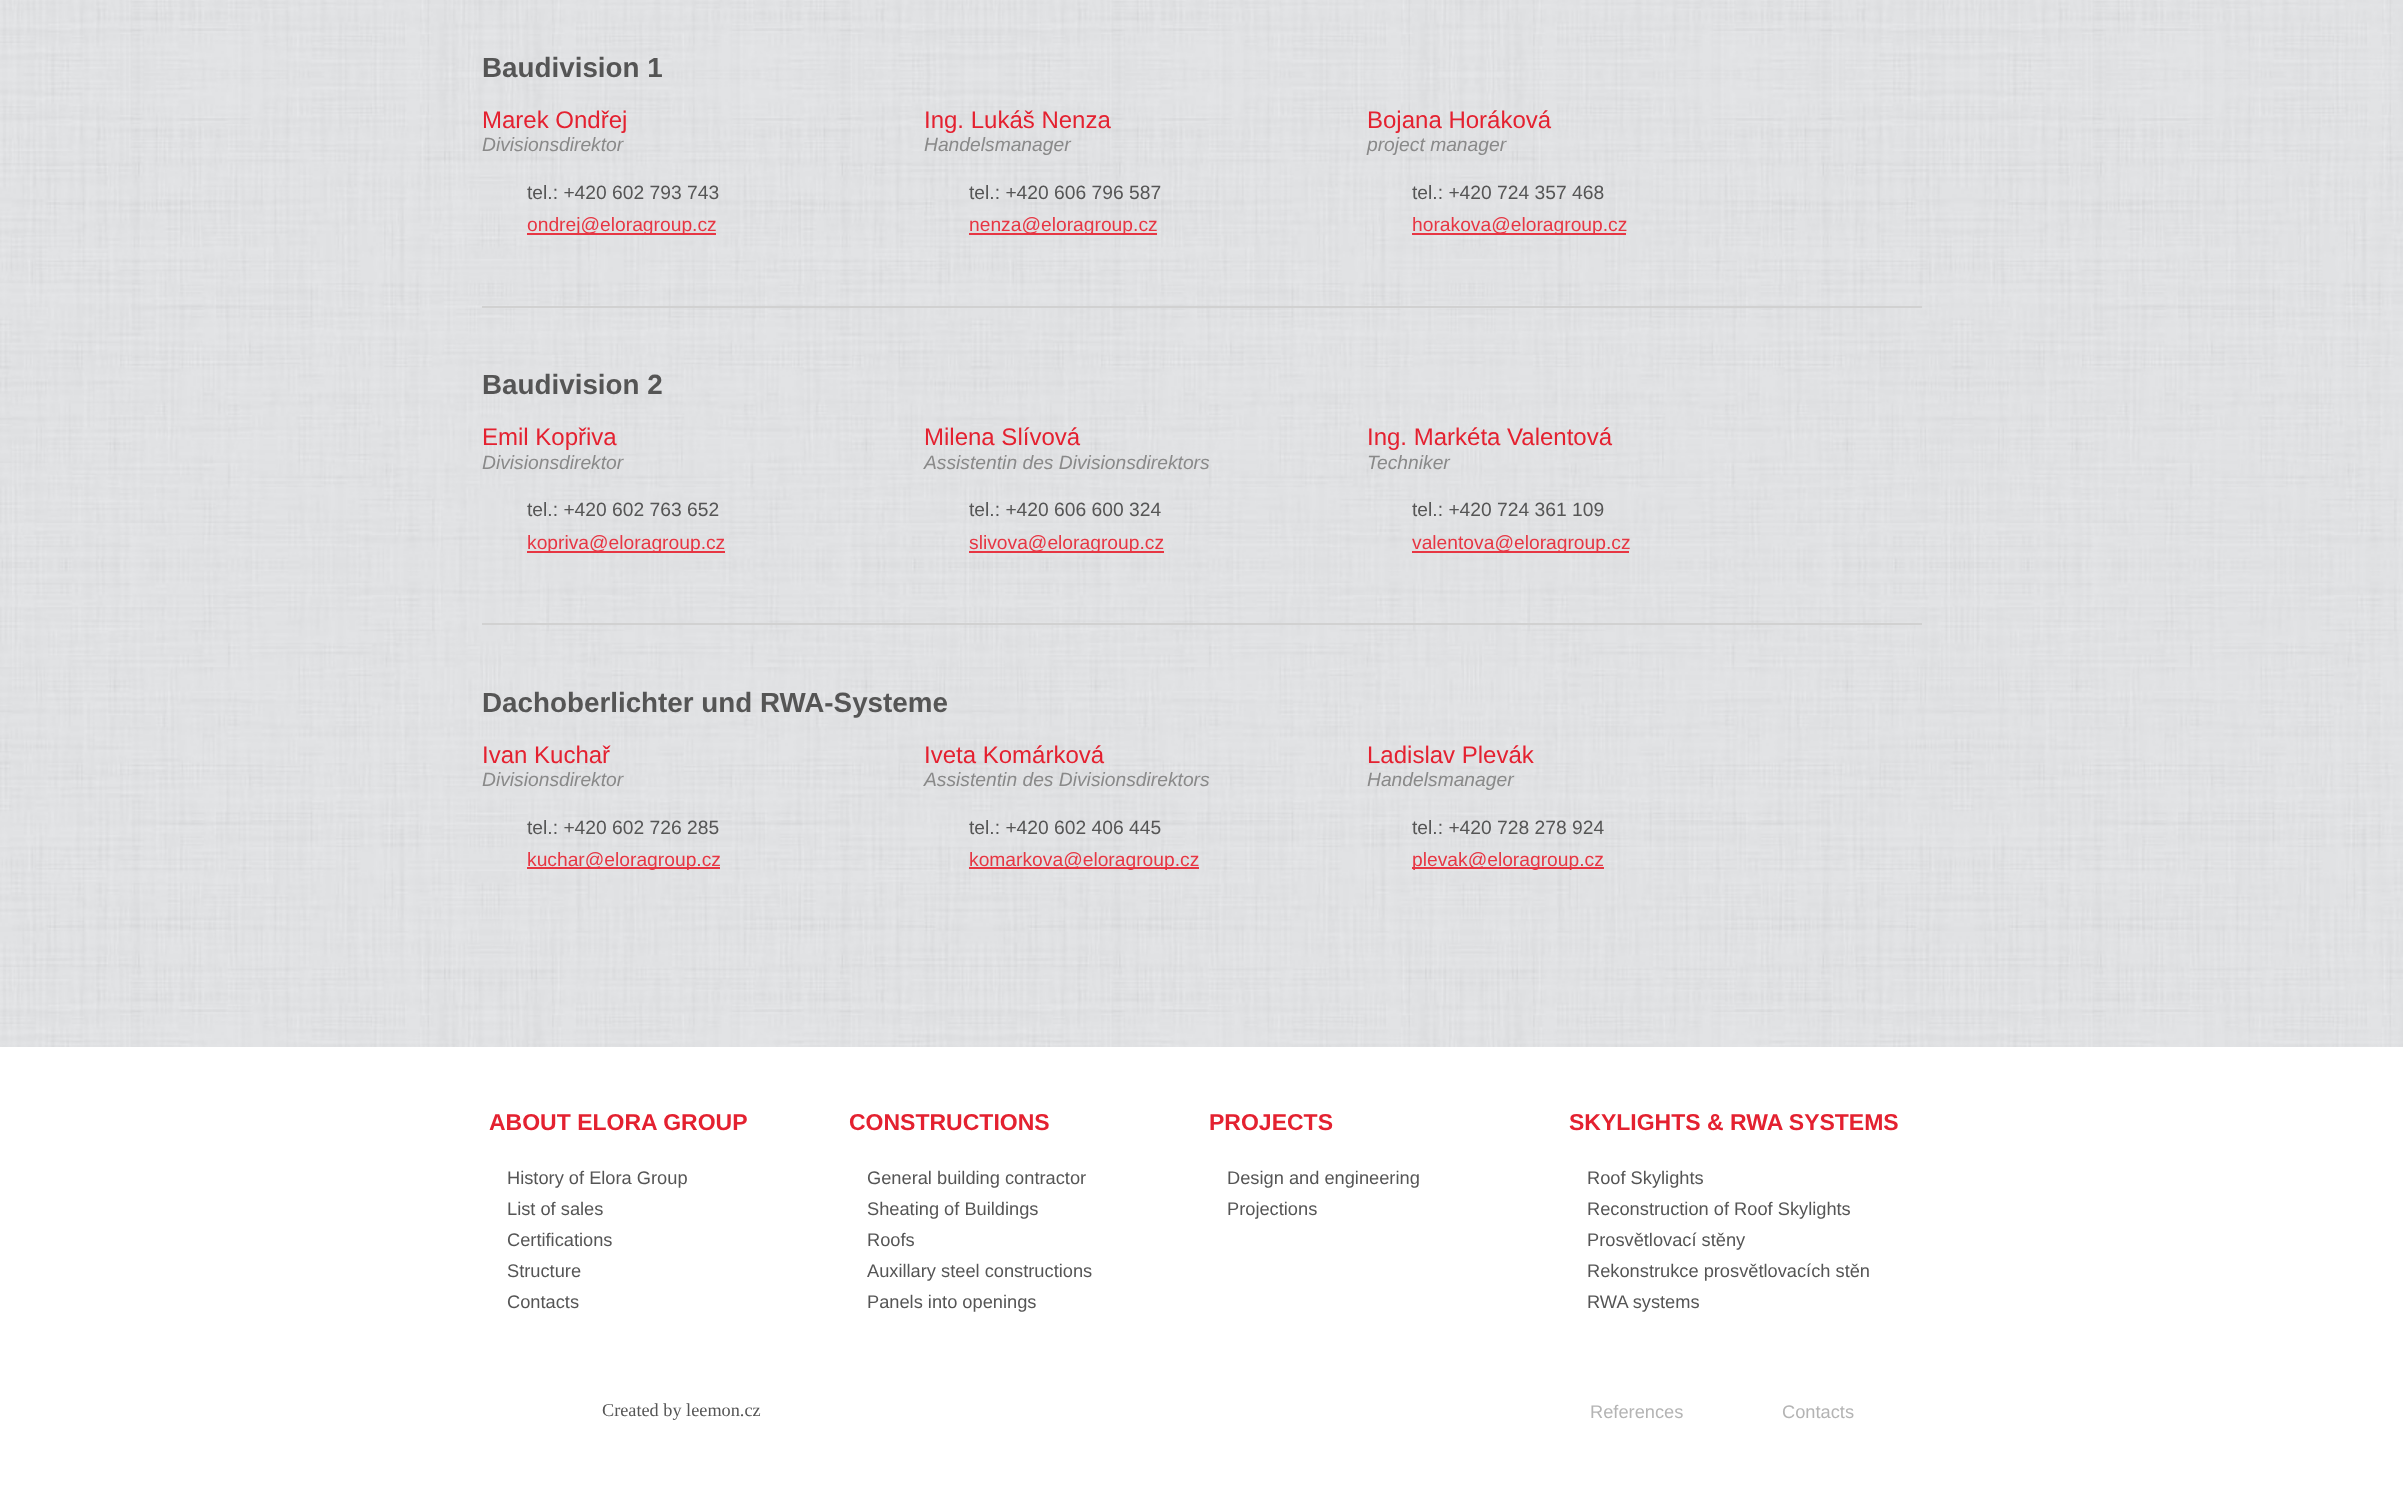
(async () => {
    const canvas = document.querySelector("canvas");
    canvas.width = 2403;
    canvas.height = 1504;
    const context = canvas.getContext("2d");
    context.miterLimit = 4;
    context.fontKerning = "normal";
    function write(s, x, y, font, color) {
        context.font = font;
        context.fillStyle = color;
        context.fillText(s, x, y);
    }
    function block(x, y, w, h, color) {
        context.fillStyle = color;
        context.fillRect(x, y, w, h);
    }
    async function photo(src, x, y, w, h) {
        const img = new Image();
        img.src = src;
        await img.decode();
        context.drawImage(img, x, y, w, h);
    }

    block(0, 0, 2403, 1504, "rgb(255, 255, 255)");
    await photo("media/1.png", 0, 0, 2403, 1047);
    block(482, 306, 1440, 2, "rgb(209, 209, 209)");
    write("Baudivision 1", 482, 77, "bold 27.8px Liberation Sans", "rgb(85, 85, 85)");
    write("Marek Ondřej", 482, 128, "24px Liberation Sans", "rgb(228, 33, 48)");
    write("Divisionsdirektor", 482, 151, "italic 19.25px Liberation Sans", "rgb(137, 137, 137)");
    write("tel.: +420 602 793 743", 527, 199, "19.25px Liberation Sans", "rgb(85, 85, 85)");
    block(527, 233, 189, 2, "rgb(231, 54, 67)");
    write("ondrej@eloragroup.cz", 527, 231, "19.25px Liberation Sans", "rgb(231, 54, 67)");
    write("Ing. Lukáš Nenza", 924, 128, "24px Liberation Sans", "rgb(228, 33, 48)");
    write("Handelsmanager", 924, 151, "italic 19.25px Liberation Sans", "rgb(137, 137, 137)");
    write("tel.: +420 606 796 587", 969, 199, "19.25px Liberation Sans", "rgb(85, 85, 85)");
    block(969, 233, 188, 2, "rgb(231, 54, 67)");
    write("nenza@eloragroup.cz", 969, 231, "19.25px Liberation Sans", "rgb(231, 54, 67)");
    write("Bojana Horáková", 1367, 128, "24px Liberation Sans", "rgb(228, 33, 48)");
    write("project manager", 1367, 151, "italic 19.25px Liberation Sans", "rgb(137, 137, 137)");
    write("tel.: +420 724 357 468", 1412, 199, "19.25px Liberation Sans", "rgb(85, 85, 85)");
    block(1412, 233, 214, 2, "rgb(231, 54, 67)");
    write("horakova@eloragroup.cz", 1412, 231, "19.25px Liberation Sans", "rgb(231, 54, 67)");
    block(482, 623, 1440, 2, "rgb(209, 209, 209)");
    write("Baudivision 2", 482, 394, "bold 27.8px Liberation Sans", "rgb(85, 85, 85)");
    write("Emil Kopřiva", 482, 445, "24px Liberation Sans", "rgb(228, 33, 48)");
    write("Divisionsdirektor", 482, 469, "italic 19.25px Liberation Sans", "rgb(137, 137, 137)");
    write("tel.: +420 602 763 652", 527, 516, "19.25px Liberation Sans", "rgb(85, 85, 85)");
    block(527, 551, 198, 2, "rgb(231, 54, 67)");
    write("kopriva@eloragroup.cz", 527, 549, "19.25px Liberation Sans", "rgb(231, 54, 67)");
    write("Milena Slívová", 924, 445, "24px Liberation Sans", "rgb(228, 33, 48)");
    write("Assistentin des Divisionsdirektors", 924, 469, "italic 19.25px Liberation Sans", "rgb(137, 137, 137)");
    write("tel.: +420 606 600 324", 969, 516, "19.25px Liberation Sans", "rgb(85, 85, 85)");
    block(969, 551, 195, 2, "rgb(231, 54, 67)");
    write("slivova@eloragroup.cz", 969, 549, "19.25px Liberation Sans", "rgb(231, 54, 67)");
    write("Ing. Markéta Valentová", 1367, 445, "24px Liberation Sans", "rgb(228, 33, 48)");
    write("Techniker", 1367, 469, "italic 19.25px Liberation Sans", "rgb(137, 137, 137)");
    write("tel.: +420 724 361 109", 1412, 516, "19.25px Liberation Sans", "rgb(85, 85, 85)");
    block(1412, 551, 217, 2, "rgb(231, 54, 67)");
    write("valentova@eloragroup.cz", 1412, 549, "19.25px Liberation Sans", "rgb(231, 54, 67)");
    write("Dachoberlichter und RWA-Systeme", 482, 712, "bold 27.8px Liberation Sans", "rgb(85, 85, 85)");
    write("Ivan Kuchař", 482, 763, "24px Liberation Sans", "rgb(228, 33, 48)");
    write("Divisionsdirektor", 482, 786, "italic 19.25px Liberation Sans", "rgb(137, 137, 137)");
    write("tel.: +420 602 726 285", 527, 834, "19.25px Liberation Sans", "rgb(85, 85, 85)");
    block(527, 867, 193, 2, "rgb(231, 54, 67)");
    write("kuchar@eloragroup.cz", 527, 866, "19.25px Liberation Sans", "rgb(231, 54, 67)");
    write("Iveta Komárková", 924, 763, "24px Liberation Sans", "rgb(228, 33, 48)");
    write("Assistentin des Divisionsdirektors", 924, 786, "italic 19.25px Liberation Sans", "rgb(137, 137, 137)");
    write("tel.: +420 602 406 445", 969, 834, "19.25px Liberation Sans", "rgb(85, 85, 85)");
    block(969, 867, 230, 2, "rgb(231, 54, 67)");
    write("komarkova@eloragroup.cz", 969, 866, "19.25px Liberation Sans", "rgb(231, 54, 67)");
    write("Ladislav Plevák", 1367, 763, "24px Liberation Sans", "rgb(228, 33, 48)");
    write("Handelsmanager", 1367, 786, "italic 19.25px Liberation Sans", "rgb(137, 137, 137)");
    write("tel.: +420 728 278 924", 1412, 834, "19.25px Liberation Sans", "rgb(85, 85, 85)");
    block(1412, 867, 192, 2, "rgb(231, 54, 67)");
    write("plevak@eloragroup.cz", 1412, 866, "19.25px Liberation Sans", "rgb(231, 54, 67)");
    write("ABOUT ELORA GROUP", 489, 1130, "bold 23px Liberation Sans", "rgb(228, 33, 48)");
    write("History of Elora Group", 507, 1184, "18.25px Liberation Sans", "rgb(85, 85, 85)");
    write("List of sales", 507, 1215, "18.25px Liberation Sans", "rgb(85, 85, 85)");
    write("Certifications", 507, 1246, "18.25px Liberation Sans", "rgb(85, 85, 85)");
    write("Structure", 507, 1277, "18.25px Liberation Sans", "rgb(85, 85, 85)");
    write("Contacts", 507, 1308, "18.25px Liberation Sans", "rgb(85, 85, 85)");
    write("CONSTRUCTIONS", 849, 1130, "bold 23px Liberation Sans", "rgb(228, 33, 48)");
    write("General building contractor", 867, 1184, "18.25px Liberation Sans", "rgb(85, 85, 85)");
    write("Sheating of Buildings", 867, 1215, "18.25px Liberation Sans", "rgb(85, 85, 85)");
    write("Roofs", 867, 1246, "18.25px Liberation Sans", "rgb(85, 85, 85)");
    write("Auxillary steel constructions", 867, 1277, "18.25px Liberation Sans", "rgb(85, 85, 85)");
    write("Panels into openings", 867, 1308, "18.25px Liberation Sans", "rgb(85, 85, 85)");
    write("PROJECTS", 1209, 1130, "bold 23px Liberation Sans", "rgb(228, 33, 48)");
    write("Design and engineering", 1227, 1184, "18.25px Liberation Sans", "rgb(85, 85, 85)");
    write("Projections", 1227, 1215, "18.25px Liberation Sans", "rgb(85, 85, 85)");
    write("SKYLIGHTS & RWA SYSTEMS", 1569, 1130, "bold 23px Liberation Sans", "rgb(228, 33, 48)");
    write("Roof Skylights", 1587, 1184, "18.25px Liberation Sans", "rgb(85, 85, 85)");
    write("Reconstruction of Roof Skylights", 1587, 1215, "18.25px Liberation Sans", "rgb(85, 85, 85)");
    write("Prosvětlovací stěny", 1587, 1246, "18.25px Liberation Sans", "rgb(85, 85, 85)");
    write("Rekonstrukce prosvětlovacích stěn", 1587, 1277, "18.25px Liberation Sans", "rgb(85, 85, 85)");
    write("RWA systems", 1587, 1308, "18.25px Liberation Sans", "rgb(85, 85, 85)");
    write("Created by leemon.cz", 602, 1416, "18.25px Liberation Serif", "rgb(85, 85, 85)");
    write("References", 1590, 1418, "18.25px Liberation Sans", "rgb(180, 180, 180)");
    write("Contacts", 1782, 1418, "18.25px Liberation Sans", "rgb(180, 180, 180)");
})();
